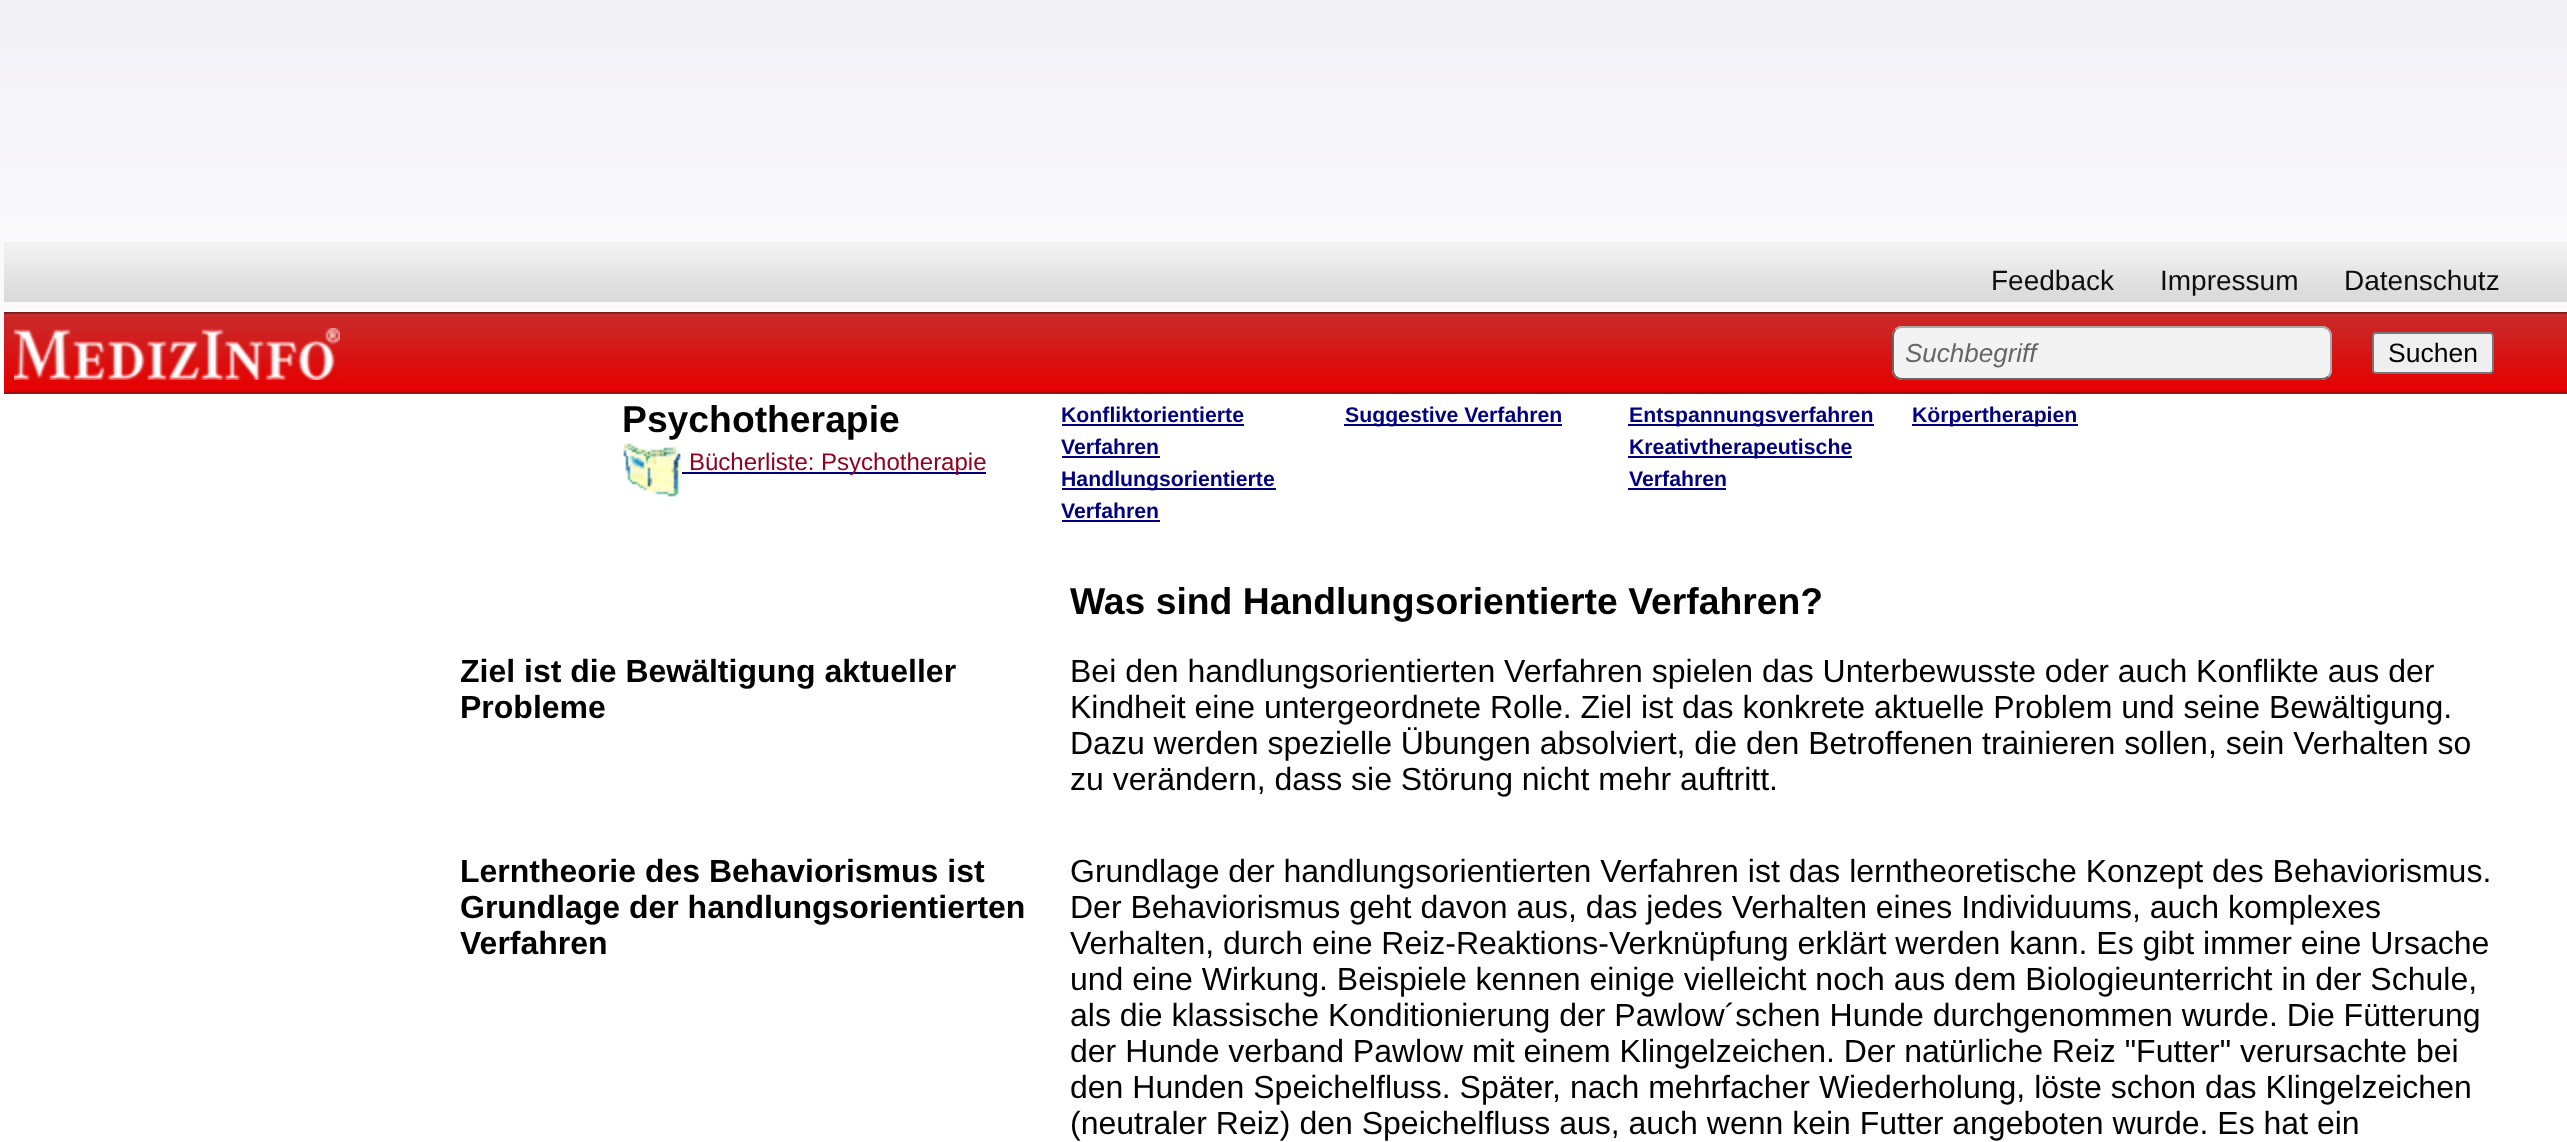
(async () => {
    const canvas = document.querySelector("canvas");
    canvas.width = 2567;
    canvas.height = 1142;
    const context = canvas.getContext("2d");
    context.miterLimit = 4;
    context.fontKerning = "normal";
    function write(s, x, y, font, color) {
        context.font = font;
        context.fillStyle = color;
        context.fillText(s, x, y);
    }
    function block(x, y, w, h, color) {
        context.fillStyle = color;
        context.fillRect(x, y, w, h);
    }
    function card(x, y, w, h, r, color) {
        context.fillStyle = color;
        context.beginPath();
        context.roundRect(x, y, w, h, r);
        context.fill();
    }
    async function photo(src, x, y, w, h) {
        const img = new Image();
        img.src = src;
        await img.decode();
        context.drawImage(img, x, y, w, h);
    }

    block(0, 0, 2567, 1142, "rgb(255, 255, 255)");
    await photo("media/1.png", 0, 0, 2567, 327);
    await photo("media/2.png", 4, 242, 2563, 60);
    write("Feedback", 1991, 290, "28px Liberation Sans", "rgb(14, 14, 14)");
    write("Impressum", 2160, 290, "28px Liberation Sans", "rgb(14, 14, 14)");
    write("Datenschutz", 2344, 290, "28px Liberation Sans", "rgb(14, 14, 14)");
    await photo("media/3.png", 4, 312, 2563, 82);
    await photo("media/4.png", 14, 328, 326, 52);
    card(1892, 326, 440, 54, 10, "rgb(243, 243, 243)");
    context.beginPath();
    context.moveTo(1895.5, 329.5);
    context.bezierCurveTo(1897.5, 328, 1899.5, 327, 1902, 327);
    context.lineTo(2322, 327);
    context.bezierCurveTo(2324.5, 327, 2326.5, 328, 2328.5, 329.5);
    context.bezierCurveTo(2330, 331.5, 2331, 333.5, 2331, 336);
    context.lineTo(2331, 370);
    context.bezierCurveTo(2331, 372.5, 2330, 374.5, 2328.5, 376.5);
    context.strokeStyle = "rgb(170, 170, 170)";
    context.lineWidth = 2;
    context.stroke();
    context.beginPath();
    context.moveTo(2328.5, 376.5);
    context.bezierCurveTo(2326.5, 378, 2324.5, 379, 2322, 379);
    context.lineTo(1902, 379);
    context.bezierCurveTo(1899.5, 379, 1897.5, 378, 1895.5, 376.5);
    context.bezierCurveTo(1894, 374.5, 1893, 372.5, 1893, 370);
    context.lineTo(1893, 336);
    context.bezierCurveTo(1893, 333.5, 1894, 331.5, 1895.5, 329.5);
    context.strokeStyle = "rgb(102, 102, 102)";
    context.stroke();
    write("Suchbegriff", 1905, 362, "italic 26px Liberation Sans", "rgb(102, 102, 102)");
    context.fillStyle = "rgb(239, 239, 239)";
    context.beginPath();
    context.roundRect(2373, 333, 120, 40, 3);
    context.fill();
    context.strokeStyle = "rgb(118, 118, 118)";
    context.stroke();
    write("Suchen", 2388, 362, "26.5px Liberation Sans", "rgb(0, 0, 0)");
    write("Psychotherapie", 622, 432, "bold 37.3px Liberation Sans", "rgb(0, 0, 0)");
    await photo("media/5.png", 623, 443, 59, 54);
    block(682, 472, 304, 2, "rgb(0, 0, 128)");
    write("Bücherliste: Psychotherapie", 689, 470, "24px Liberation Sans", "rgb(144, 0, 32)");
    write("Konfliktorientierte", 1061, 422, "bold 21.25px Liberation Sans", "rgb(0, 0, 128)");
    block(1062, 424, 182, 2, "rgb(0, 0, 128)");
    write("Verfahren", 1061, 454, "bold 21.25px Liberation Sans", "rgb(0, 0, 128)");
    block(1062, 456, 98, 2, "rgb(0, 0, 128)");
    block(1062, 488, 214, 2, "rgb(0, 0, 128)");
    write("Handlungsorientierte", 1061, 486, "bold 21.25px Liberation Sans", "rgb(0, 0, 128)");
    write("Verfahren", 1061, 518, "bold 21.25px Liberation Sans", "rgb(0, 0, 128)");
    block(1062, 520, 98, 2, "rgb(0, 0, 128)");
    block(1344, 424, 218, 2, "rgb(0, 0, 128)");
    write("Suggestive Verfahren", 1345, 422, "bold 21.25px Liberation Sans", "rgb(0, 0, 128)");
    block(1628, 424, 246, 2, "rgb(0, 0, 128)");
    write("Entspannungsverfahren", 1629, 422, "bold 21.25px Liberation Sans", "rgb(0, 0, 128)");
    block(1628, 456, 224, 2, "rgb(0, 0, 128)");
    write("Kreativtherapeutische", 1629, 454, "bold 21.25px Liberation Sans", "rgb(0, 0, 128)");
    write("Verfahren", 1629, 486, "bold 21.25px Liberation Sans", "rgb(0, 0, 128)");
    block(1628, 488, 98, 2, "rgb(0, 0, 128)");
    block(1912, 424, 166, 2, "rgb(0, 0, 128)");
    write("Körpertherapien", 1912, 422, "bold 21.25px Liberation Sans", "rgb(0, 0, 128)");
    write("Was sind Handlungsorientierte Verfahren?", 1070, 614, "bold 37.3px Liberation Sans", "rgb(0, 0, 0)");
    write("Ziel ist die Bewältigung aktueller", 460, 682, "bold 32px Liberation Sans", "rgb(0, 0, 0)");
    write("Probleme", 460, 718, "bold 32px Liberation Sans", "rgb(0, 0, 0)");
    write("Bei den handlungsorientierten Verfahren spielen das Unterbewusste oder auch Konflikte aus der", 1070, 682, "32px Liberation Sans", "rgb(0, 0, 0)");
    write("Kindheit eine untergeordnete Rolle. Ziel ist das konkrete aktuelle Problem und seine Bewältigung.", 1070, 718, "32px Liberation Sans", "rgb(0, 0, 0)");
    write("Dazu werden spezielle Übungen absolviert, die den Betroffenen trainieren sollen, sein Verhalten so", 1070, 754, "32px Liberation Sans", "rgb(0, 0, 0)");
    write("zu verändern, dass sie Störung nicht mehr auftritt.", 1070, 790, "32px Liberation Sans", "rgb(0, 0, 0)");
    write("Lerntheorie des Behaviorismus ist", 460, 882, "bold 32px Liberation Sans", "rgb(0, 0, 0)");
    write("Grundlage der handlungsorientierten", 460, 918, "bold 32px Liberation Sans", "rgb(0, 0, 0)");
    write("Verfahren", 460, 954, "bold 32px Liberation Sans", "rgb(0, 0, 0)");
    write("Grundlage der handlungsorientierten Verfahren ist das lerntheoretische Konzept des Behaviorismus.", 1070, 882, "32px Liberation Sans", "rgb(0, 0, 0)");
    write("Der Behaviorismus geht davon aus, das jedes Verhalten eines Individuums, auch komplexes", 1070, 918, "32px Liberation Sans", "rgb(0, 0, 0)");
    write("Verhalten, durch eine Reiz-Reaktions-Verknüpfung erklärt werden kann. Es gibt immer eine Ursache", 1070, 954, "32px Liberation Sans", "rgb(0, 0, 0)");
    write("und eine Wirkung. Beispiele kennen einige vielleicht noch aus dem Biologieunterricht in der Schule,", 1070, 990, "32px Liberation Sans", "rgb(0, 0, 0)");
    write("als die klassische Konditionierung der Pawlow´schen Hunde durchgenommen wurde. Die Fütterung", 1070, 1026, "32px Liberation Sans", "rgb(0, 0, 0)");
    write("der Hunde verband Pawlow mit einem Klingelzeichen. Der natürliche Reiz \"Futter\" verursachte bei", 1070, 1062, "32px Liberation Sans", "rgb(0, 0, 0)");
    write("den Hunden Speichelfluss. Später, nach mehrfacher Wiederholung, löste schon das Klingelzeichen", 1070, 1098, "32px Liberation Sans", "rgb(0, 0, 0)");
    write("(neutraler Reiz) den Speichelfluss aus, auch wenn kein Futter angeboten wurde. Es hat ein", 1070, 1134, "32px Liberation Sans", "rgb(0, 0, 0)");
})();
